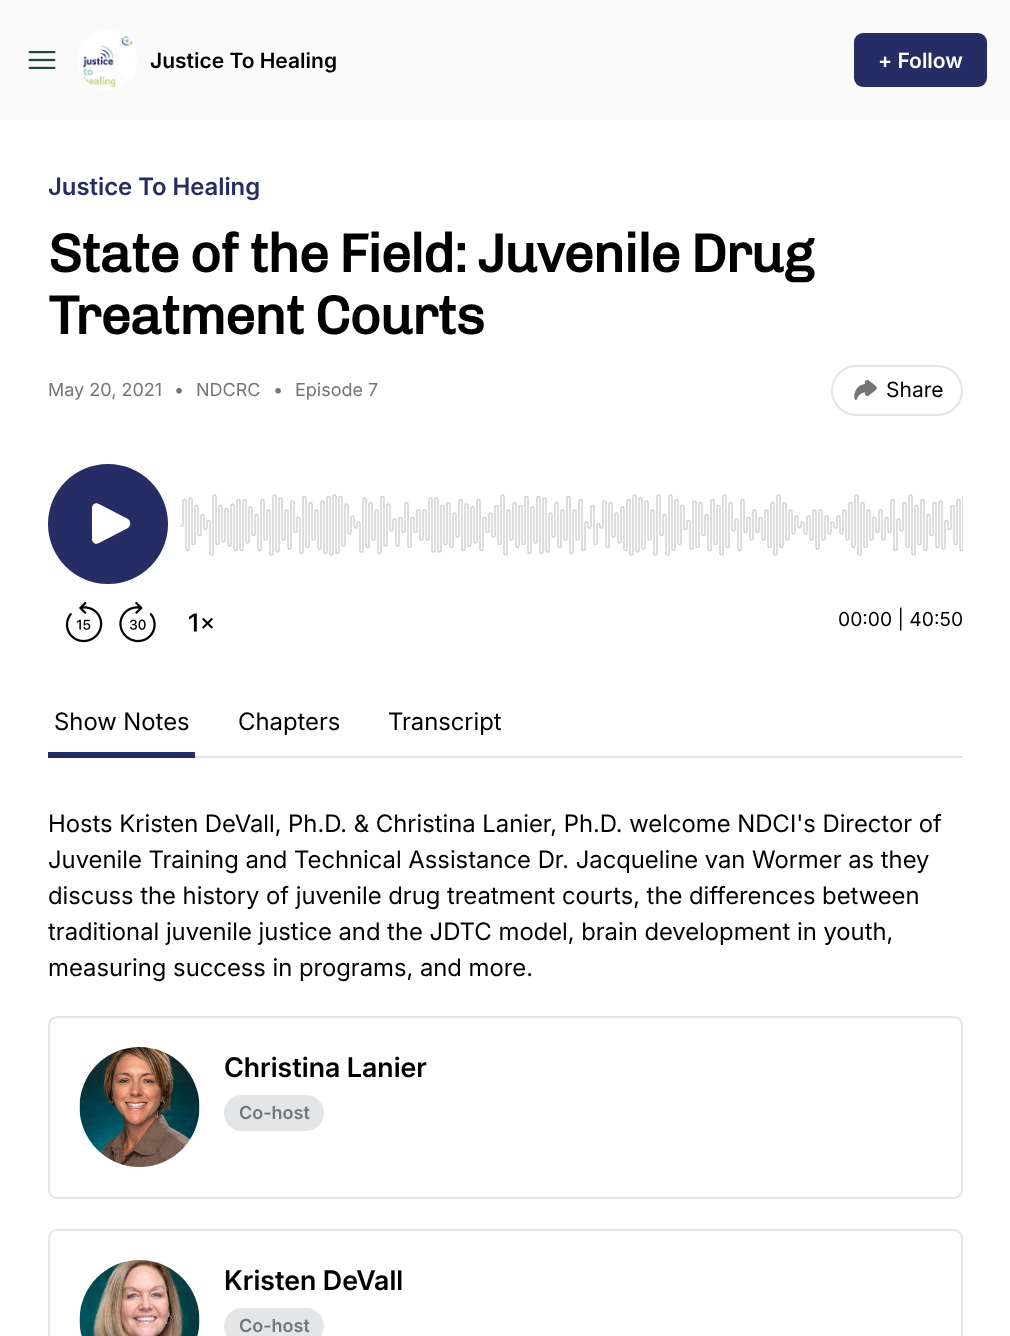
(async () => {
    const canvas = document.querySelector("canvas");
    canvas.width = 1010;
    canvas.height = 1336;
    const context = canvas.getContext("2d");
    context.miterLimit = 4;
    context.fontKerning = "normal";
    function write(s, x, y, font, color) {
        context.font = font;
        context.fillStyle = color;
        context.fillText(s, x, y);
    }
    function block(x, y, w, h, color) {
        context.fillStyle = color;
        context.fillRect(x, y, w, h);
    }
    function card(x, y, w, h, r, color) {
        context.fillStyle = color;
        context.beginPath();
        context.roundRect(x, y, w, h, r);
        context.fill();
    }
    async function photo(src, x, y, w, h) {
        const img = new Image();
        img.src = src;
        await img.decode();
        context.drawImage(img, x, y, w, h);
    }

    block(0, 0, 1010, 1336, "rgb(255, 255, 255)");
    block(0, 0, 1010, 120, "rgb(250, 250, 250)");
    await photo("media/1.png", 28, 51, 28, 18);
    await photo("media/2.png", 78, 30, 59, 60);
    write("Justice To Healing", 150, 68, "600 21px Inter", "rgb(0, 0, 0)");
    card(854, 33, 133, 54, 9, "rgb(37, 45, 100)");
    write("+ Follow", 878, 68, "600 21px Inter", "rgb(255, 255, 255)");
    write("Justice To Healing", 48, 195, "600 24px 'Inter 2'", "rgb(37, 45, 100)");
    context.letterSpacing = "-1.35px";
    write("State of the Field: Juvenile Drug", 48, 272, "bold 54px Chivo", "rgb(0, 0, 0)");
    write("Treatment Courts", 48, 334, "bold 54px Chivo", "rgb(0, 0, 0)");
    context.letterSpacing = "0px";
    write("May 20, 2021", 48, 396, "18px Inter", "rgb(116, 117, 118)");
    write("•", 174, 396, "18px Inter", "rgb(116, 117, 118)");
    write("NDCRC", 196, 396, "18px Inter", "rgb(116, 117, 118)");
    write("•", 273, 396, "18px Inter", "rgb(116, 117, 118)");
    write("Episode 7", 295, 396, "18px Inter", "rgb(116, 117, 118)");
    context.beginPath();
    context.roundRect(832, 366, 130, 49, 24.5);
    context.strokeStyle = "rgb(228, 229, 230)";
    context.lineWidth = 2;
    context.stroke();
    await photo("media/3.png", 854, 380, 23, 20);
    write("Share", 886, 397, "21px Inter", "rgb(0, 0, 0)");
    await photo("media/4.png", 65, 602, 38, 41);
    await photo("media/5.png", 119, 602, 37, 41);
    await photo("media/6.png", 189, 613, 24, 19);
    context.fillStyle = "rgb(37, 45, 100)";
    context.beginPath();
    context.arc(108, 524, 60, 0, Math.PI * 2);
    context.fill();
    context.fillStyle = "rgb(255, 255, 255)";
    context.beginPath();
    context.moveTo(92, 508);
    context.bezierCurveTo(92, 504, 96, 502, 99, 504);
    context.lineTo(128, 519);
    context.bezierCurveTo(131, 521, 131, 526, 128, 528);
    context.lineTo(99, 543);
    context.bezierCurveTo(96, 545, 92, 543, 92, 539);
    context.closePath();
    context.fill("evenodd");
    await photo("media/7.png", 180, 494, 783, 62);
    write("00:00 | 40:50", 838, 626, "19.25px Inter", "rgb(0, 0, 0)");
    block(195, 756, 768, 2, "rgb(228, 229, 230)");
    block(48, 752, 147, 6, "rgb(37, 45, 100)");
    write("Show Notes", 54, 730, "24px 'Inter 2'", "rgb(0, 0, 0)");
    write("Chapters", 238, 730, "24px 'Inter 2'", "rgb(0, 0, 0)");
    write("Transcript", 388, 730, "24px 'Inter 2'", "rgb(0, 0, 0)");
    write("Hosts Kristen DeVall, Ph.D. & Christina Lanier, Ph.D. welcome NDCI's Director of", 48, 832, "24px 'Inter 2'", "rgb(0, 0, 0)");
    write("Juvenile Training and Technical Assistance Dr. Jacqueline van Wormer as they", 48, 868, "24px 'Inter 2'", "rgb(0, 0, 0)");
    write("discuss the history of juvenile drug treatment courts, the differences between", 48, 904, "24px 'Inter 2'", "rgb(0, 0, 0)");
    write("traditional juvenile justice and the JDTC model, brain development in youth,", 48, 940, "24px 'Inter 2'", "rgb(0, 0, 0)");
    write("measuring success in programs, and more.", 48, 976, "24px 'Inter 2'", "rgb(0, 0, 0)");
    context.beginPath();
    context.roundRect(49, 1017, 913, 181, 8);
    context.stroke();
    await photo("media/8.png", 79, 1047, 121, 120);
    write("Christina Lanier", 224, 1077, "600 27px 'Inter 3'", "rgb(0, 0, 0)");
    card(224, 1095, 100, 36, 18, "rgb(228, 229, 230)");
    write("Co-host", 239, 1119, "600 18px Inter", "rgb(116, 117, 118)");
    context.beginPath();
    context.roundRect(49, 1230, 913, 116, 8);
    context.stroke();
    await photo("media/9.png", 79, 1260, 121, 76);
    write("Kristen DeVall", 224, 1290, "600 27px 'Inter 3'", "rgb(0, 0, 0)");
    card(224, 1308, 100, 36, 18, "rgb(228, 229, 230)");
    write("Co-host", 239, 1332, "600 18px Inter", "rgb(116, 117, 118)");
})();
